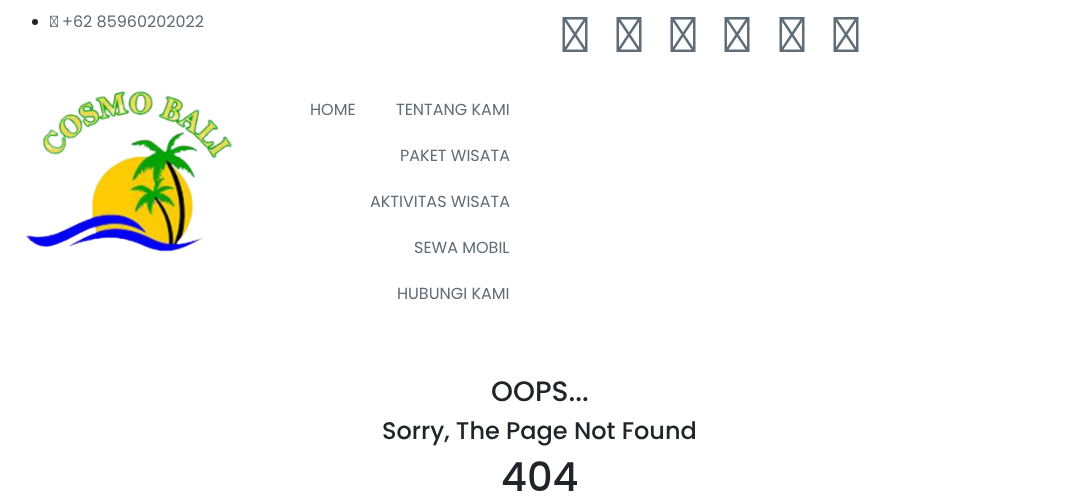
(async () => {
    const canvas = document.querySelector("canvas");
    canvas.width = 1079;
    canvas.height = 503;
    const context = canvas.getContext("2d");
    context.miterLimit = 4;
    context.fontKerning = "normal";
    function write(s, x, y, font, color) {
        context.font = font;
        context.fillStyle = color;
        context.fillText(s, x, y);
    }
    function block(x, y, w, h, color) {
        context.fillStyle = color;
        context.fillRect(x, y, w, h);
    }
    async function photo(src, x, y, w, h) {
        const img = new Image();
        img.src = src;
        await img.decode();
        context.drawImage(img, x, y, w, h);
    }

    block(0, 0, 1079, 503, "rgb(255, 255, 255)");
    context.fillStyle = "rgb(33, 37, 41)";
    context.beginPath();
    context.arc(35, 22, 3, 0, Math.PI * 2);
    context.fill();
    await photo("media/1.png", 50, 15, 8, 12);
    write("+62 85960202022", 62, 27, "16px Poppins", "rgb(94, 109, 119)");
    await photo("media/2.png", 562, 17, 26, 35);
    await photo("media/2.png", 616, 17, 26, 35);
    await photo("media/2.png", 670, 17, 26, 35);
    await photo("media/2.png", 724, 17, 26, 35);
    await photo("media/2.png", 779, 17, 26, 35);
    await photo("media/2.png", 833, 17, 26, 35);
    await photo("media/3.png", 26, 90, 206, 162);
    write("HOME", 310, 115, "16px Poppins", "rgb(94, 109, 119)");
    write("TENTANG KAMI", 396, 115, "16px Poppins", "rgb(94, 109, 119)");
    write("PAKET WISATA", 400, 161, "16px Poppins", "rgb(94, 109, 119)");
    write("AKTIVITAS WISATA", 370, 207, "16px Poppins", "rgb(94, 109, 119)");
    write("SEWA MOBIL", 414, 253, "16px Poppins", "rgb(94, 109, 119)");
    write("HUBUNGI KAMI", 397, 299, "16px Poppins", "rgb(94, 109, 119)");
    write("OOPS...", 491, 401, "500 28px Poppins", "rgb(33, 37, 41)");
    write("Sorry, The Page Not Found", 382, 439, "500 24px Poppins", "rgb(33, 37, 41)");
    write("404", 501, 491, "500 40px Poppins", "rgb(33, 37, 41)");
})();
